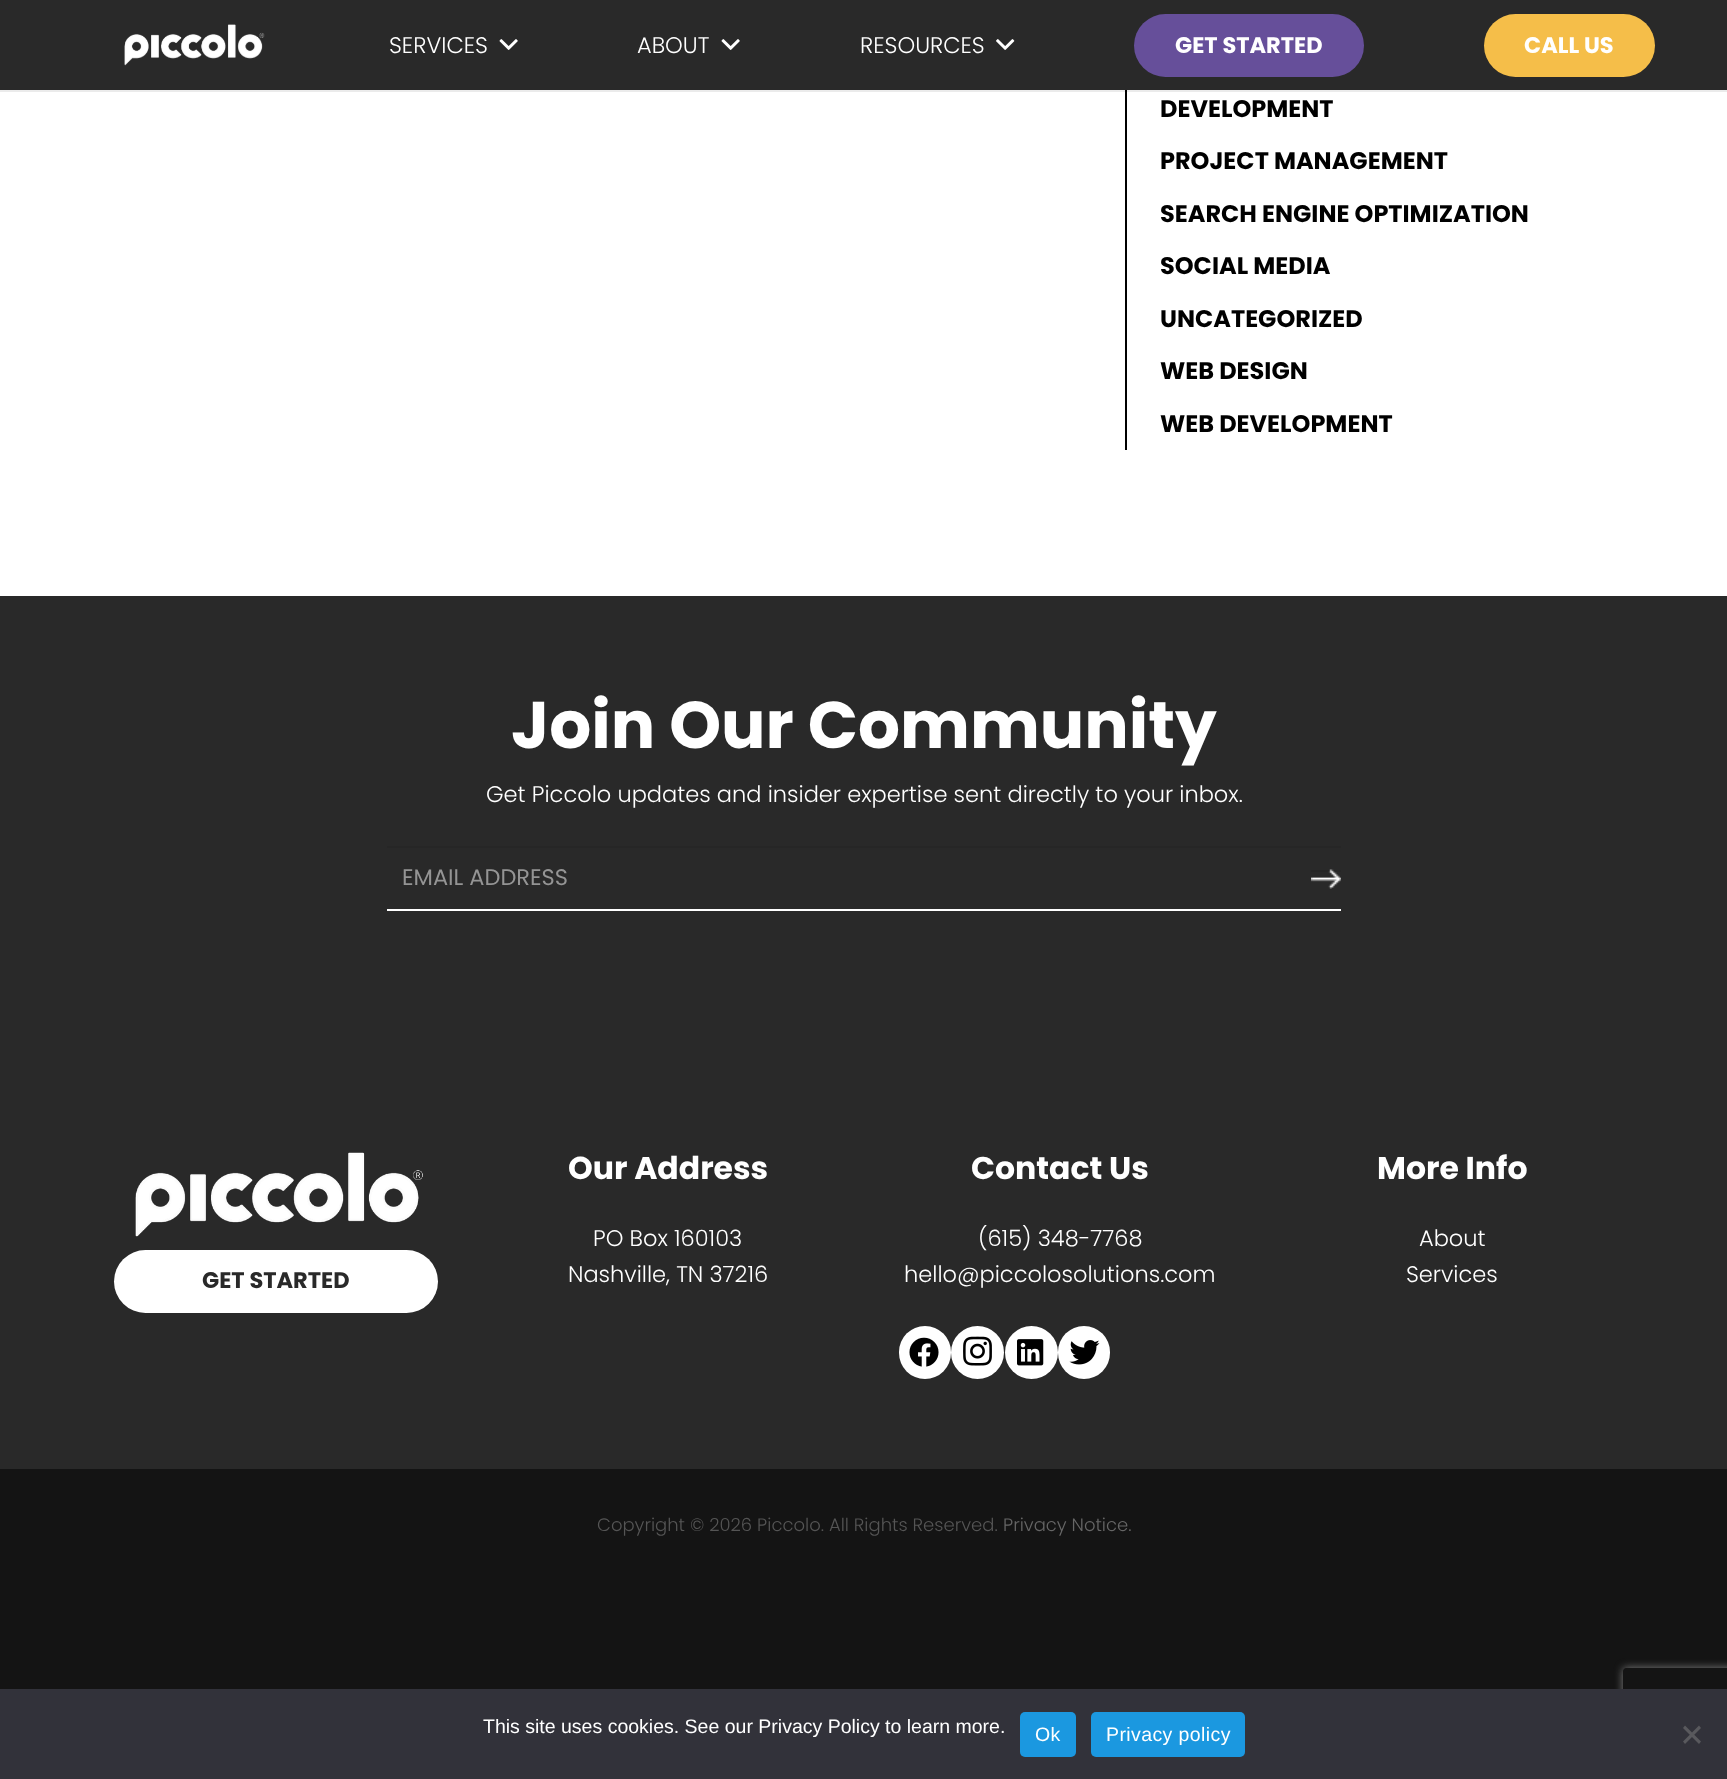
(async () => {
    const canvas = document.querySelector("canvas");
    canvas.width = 1727;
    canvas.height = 1779;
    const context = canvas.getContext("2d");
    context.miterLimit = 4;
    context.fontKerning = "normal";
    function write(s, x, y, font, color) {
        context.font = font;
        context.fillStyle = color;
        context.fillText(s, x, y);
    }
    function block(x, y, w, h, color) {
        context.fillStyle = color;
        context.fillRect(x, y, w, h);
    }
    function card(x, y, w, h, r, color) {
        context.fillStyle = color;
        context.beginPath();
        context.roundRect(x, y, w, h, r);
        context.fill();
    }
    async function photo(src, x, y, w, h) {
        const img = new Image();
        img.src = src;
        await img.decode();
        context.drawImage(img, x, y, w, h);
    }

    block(0, 0, 1727, 1779, "rgb(255, 255, 255)");
    block(0, 90, 1727, 2, "rgb(235, 235, 235)");
    block(0, 0, 1727, 90, "rgb(41, 41, 41)");
    await photo("media/1.png", 124, 24, 141, 42);
    write("SERVICES", 389, 53, "300 22.5px Poppins", "rgb(255, 255, 255)");
    await photo("media/2.png", 499, 39, 19, 11);
    write("ABOUT", 637, 53, "300 22.5px Poppins", "rgb(255, 255, 255)");
    await photo("media/2.png", 721, 39, 19, 11);
    write("RESOURCES", 860, 53, "300 22.5px Poppins", "rgb(255, 255, 255)");
    await photo("media/3.png", 996, 39, 19, 11);
    card(1134, 14, 230, 63, 31.5, "rgb(102, 79, 154)");
    write("GET STARTED", 1175, 53, "bold 22.5px Poppins", "rgb(255, 255, 255)");
    card(1484, 14, 171, 63, 31.5, "rgb(245, 190, 73)");
    write("CALL US", 1524, 53, "bold 22.5px Poppins", "rgb(255, 255, 255)");
    block(1125, 90, 2, 360, "rgb(0, 0, 0)");
    write("DEVELOPMENT", 1160, 117, "bold 24px Poppins", "rgb(0, 0, 0)");
    write("PROJECT MANAGEMENT", 1160, 169, "bold 24px Poppins", "rgb(0, 0, 0)");
    write("SEARCH ENGINE OPTIMIZATION", 1160, 222, "bold 24px Poppins", "rgb(0, 0, 0)");
    write("SOCIAL MEDIA", 1160, 274, "bold 24px Poppins", "rgb(0, 0, 0)");
    write("UNCATEGORIZED", 1160, 327, "bold 24px Poppins", "rgb(0, 0, 0)");
    write("WEB DESIGN", 1160, 379, "bold 24px Poppins", "rgb(0, 0, 0)");
    write("WEB DEVELOPMENT", 1160, 432, "bold 24px Poppins", "rgb(0, 0, 0)");
    block(0, 596, 1727, 873, "rgb(41, 41, 41)");
    write("Join Our Community", 511, 748, "bold 66px Poppins", "rgb(255, 255, 255)");
    write("Get Piccolo updates and insider expertise sent directly to your inbox.", 486, 802, "300 22.5px Poppins", "rgb(255, 255, 255)");
    block(387, 846, 954, 2, "rgb(38, 38, 38)");
    block(387, 909, 954, 2, "rgb(255, 255, 255)");
    write("EMAIL ADDRESS", 402, 885, "22.5px Poppins", "rgb(148, 148, 148)");
    block(1311, 870, 30, 2, "rgb(38, 38, 38)");
    await photo("media/4.png", 1311, 869, 30, 20);
    await photo("media/5.png", 135, 1152, 288, 85);
    card(114, 1250, 324, 63, 31.5, "rgb(255, 255, 255)");
    write("GET STARTED", 202, 1288, "bold 22.5px Poppins", "rgb(41, 41, 41)");
    write("Our Address", 568, 1179, "bold 31.5px Poppins", "rgb(255, 255, 255)");
    write("PO Box 160103", 593, 1246, "300 22.5px Poppins", "rgb(255, 255, 255)");
    write("Nashville, TN 37216", 568, 1282, "300 22.5px Poppins", "rgb(255, 255, 255)");
    write("Contact Us", 971, 1179, "bold 31.5px Poppins", "rgb(255, 255, 255)");
    write("(615) 348-7768", 978, 1246, "300 22.5px Poppins", "rgb(255, 255, 255)");
    write("hello@piccolosolutions.com", 904, 1282, "300 22.5px Poppins", "rgb(255, 255, 255)");
    card(899, 1326, 52, 53, 26, "rgb(255, 255, 255)");
    await photo("media/6.png", 909, 1337, 30, 30);
    context.beginPath();
    context.arc(977.5, 1352.5, 26.5, 0, Math.PI * 2);
    context.fill();
    await photo("media/7.png", 963, 1336, 29, 30);
    context.beginPath();
    context.arc(1031.5, 1352.5, 26.5, 0, Math.PI * 2);
    context.fill();
    await photo("media/8.png", 1017, 1339, 27, 27);
    card(1058, 1326, 52, 53, 26, "rgb(255, 255, 255)");
    await photo("media/9.png", 1069, 1340, 31, 25);
    write("More Info", 1377, 1179, "bold 31.5px Poppins", "rgb(255, 255, 255)");
    write("About", 1419, 1246, "300 22.5px Poppins", "rgb(255, 255, 255)");
    write("Services", 1406, 1282, "300 22.5px Poppins", "rgb(255, 255, 255)");
    block(0, 1469, 1727, 220, "rgb(20, 20, 20)");
    write("Copyright © 2026 Piccolo. All Rights Reserved.", 597, 1531, "300 18px Poppins", "rgb(85, 85, 85)");
    write("Privacy Notice.", 1003, 1531, "300 18px Poppins", "rgb(102, 102, 102)");
    context.save();
    context.beginPath();
    context.moveTo(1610, 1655);
    context.lineTo(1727, 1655);
    context.lineTo(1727, 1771);
    context.lineTo(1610, 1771);
    context.closePath();
    context.moveTo(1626, 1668);
    context.lineTo(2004, 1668);
    context.bezierCurveTo(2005.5, 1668, 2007, 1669.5, 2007, 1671);
    context.lineTo(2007, 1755);
    context.bezierCurveTo(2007, 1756.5, 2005.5, 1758, 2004, 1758);
    context.lineTo(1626, 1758);
    context.bezierCurveTo(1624.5, 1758, 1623, 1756.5, 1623, 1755);
    context.lineTo(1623, 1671);
    context.bezierCurveTo(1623, 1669.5, 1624.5, 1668, 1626, 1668);
    context.closePath();
    context.clip("evenodd");
    context.fillStyle = "rgb(128, 128, 128)";
    context.filter = "blur(4px)";
    context.beginPath();
    context.roundRect(1623, 1668, 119, 90, 3);
    context.fill();
    context.filter = "none";
    context.restore();
    block(0, 1689, 1727, 90, "rgb(50, 50, 58)");
    write("This site uses cookies. See our Privacy Policy to learn more.", 483, 1733, "19.5px Liberation Sans", "rgb(255, 255, 255)");
    card(1020, 1712, 56, 45, 5, "rgb(27, 152, 224)");
    context.letterSpacing = "0.4px";
    write("Ok", 1035, 1741, "19.5px Liberation Sans", "rgb(255, 255, 255)");
    card(1091, 1712, 154, 45, 5, "rgb(27, 152, 224)");
    write("Privacy policy", 1106, 1741, "19.5px Liberation Sans", "rgb(255, 255, 255)");
    context.fillStyle = "rgb(89, 89, 93)";
    context.beginPath();
    context.moveTo(1699, 1725.5);
    context.lineTo(1701, 1728);
    context.lineTo(1685, 1744);
    context.lineTo(1683, 1741.5);
    context.closePath();
    context.fill();
    context.beginPath();
    context.moveTo(1683, 1728);
    context.lineTo(1685, 1725.5);
    context.lineTo(1701, 1741.5);
    context.lineTo(1699, 1744);
    context.closePath();
    context.fill();
})();
